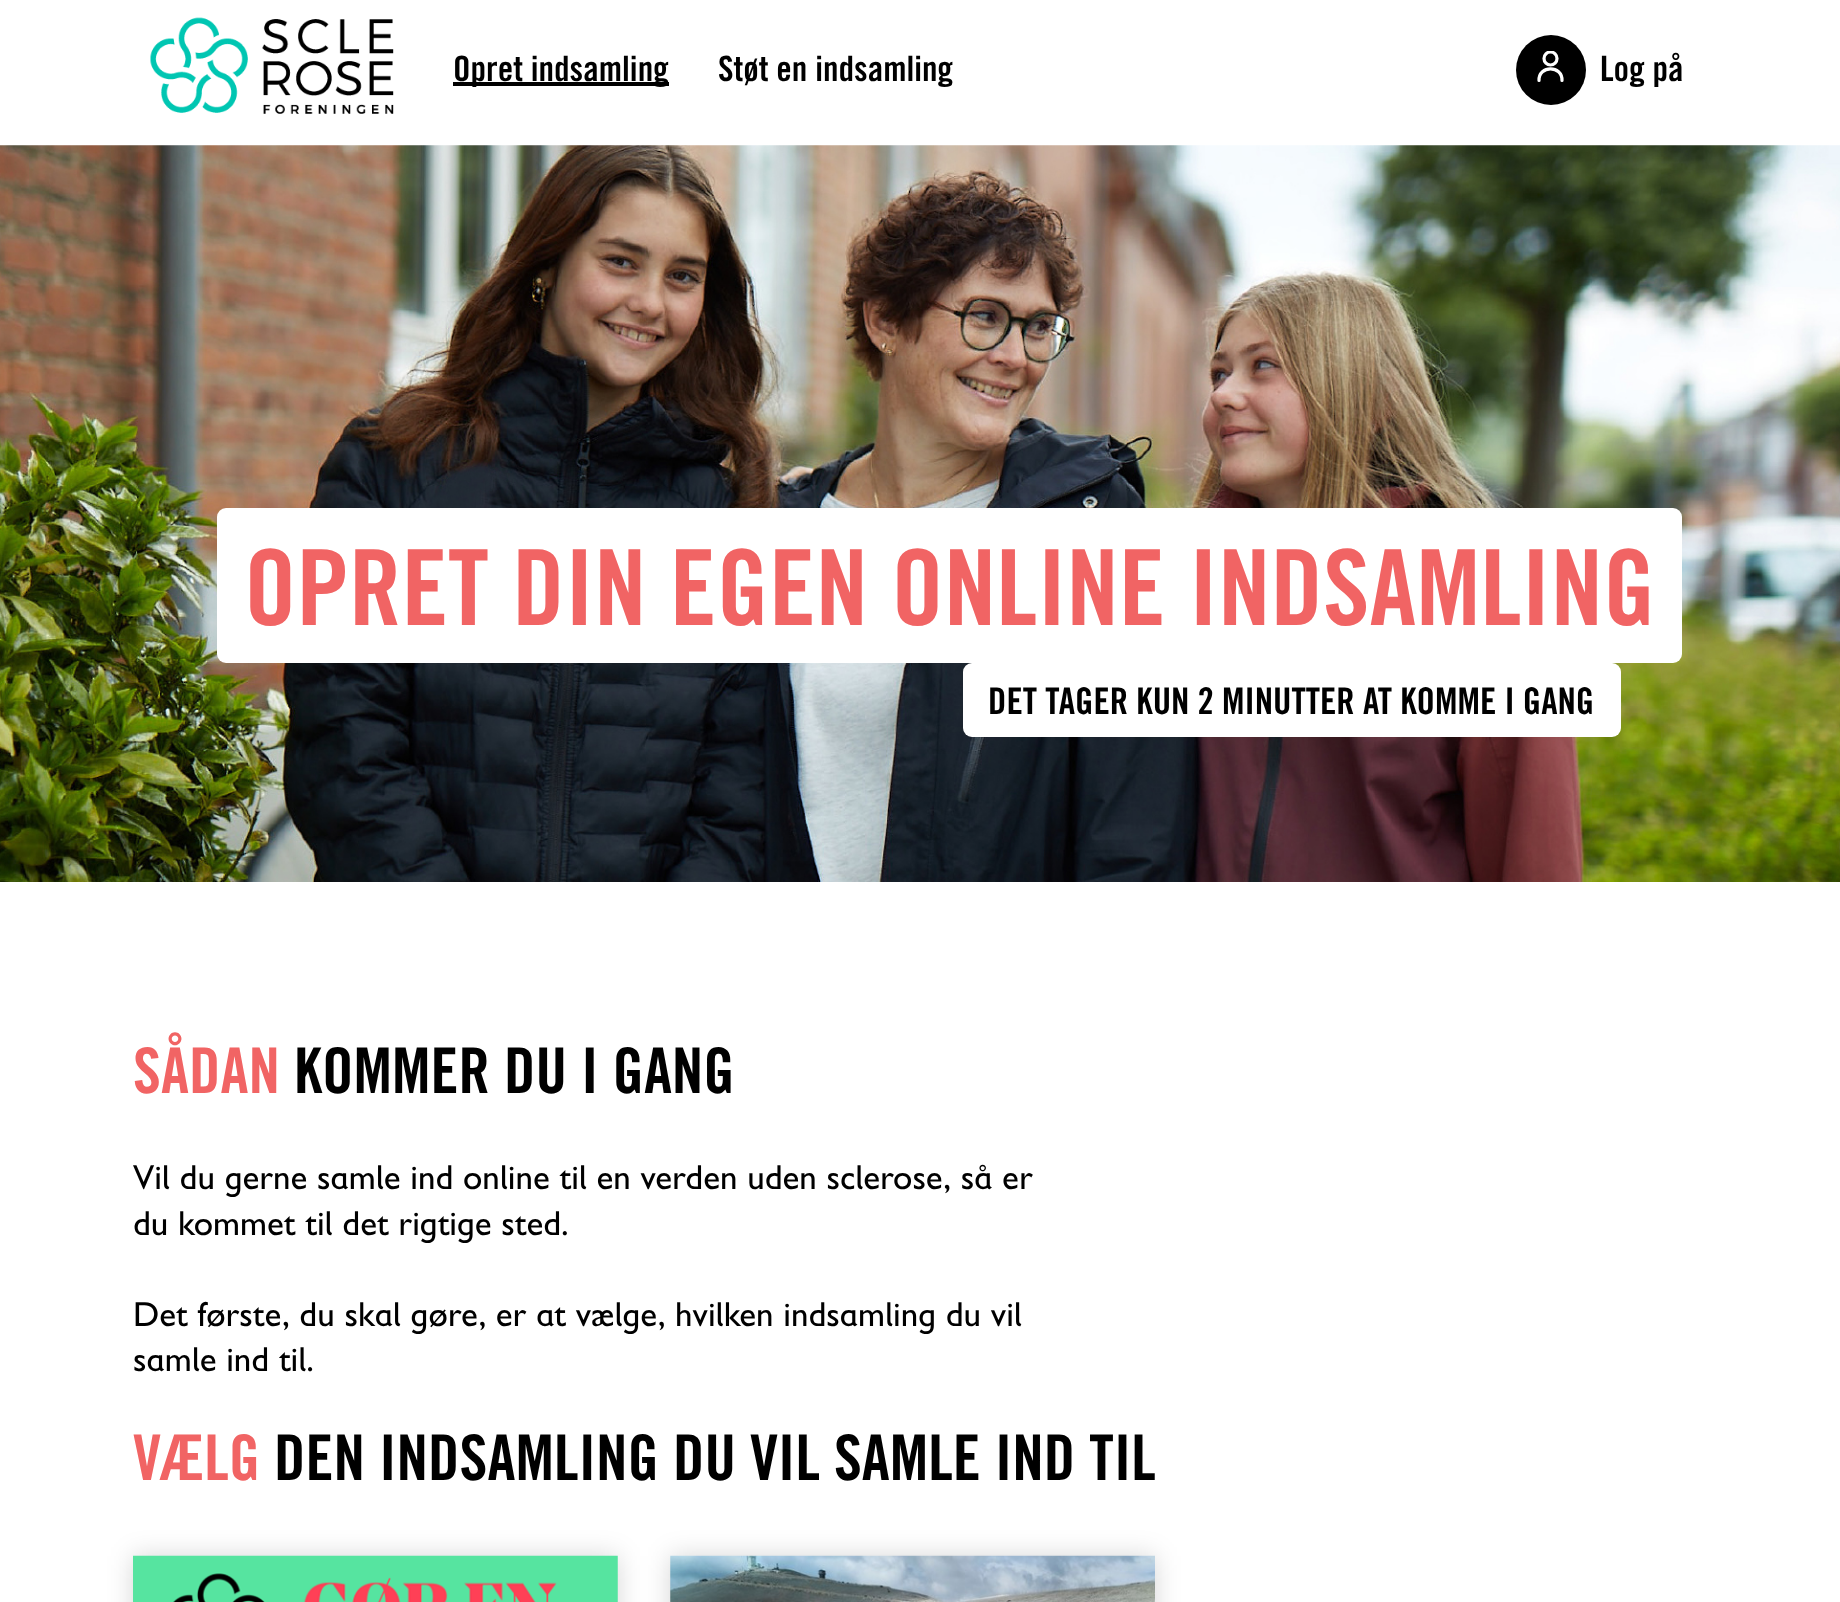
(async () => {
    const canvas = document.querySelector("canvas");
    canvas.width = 1840;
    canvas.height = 1602;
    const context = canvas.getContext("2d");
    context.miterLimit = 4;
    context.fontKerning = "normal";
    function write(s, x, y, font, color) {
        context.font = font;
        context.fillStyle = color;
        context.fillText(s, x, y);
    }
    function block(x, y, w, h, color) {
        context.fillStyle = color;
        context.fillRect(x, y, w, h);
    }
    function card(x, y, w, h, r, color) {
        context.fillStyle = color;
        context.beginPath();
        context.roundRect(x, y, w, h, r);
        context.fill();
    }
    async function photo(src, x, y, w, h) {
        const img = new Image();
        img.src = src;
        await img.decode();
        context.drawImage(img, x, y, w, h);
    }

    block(0, 0, 1840, 1602, "rgb(255, 255, 255)");
    await photo("media/1.png", 150, 17, 244, 97);
    block(453, 82, 216, 4, "rgb(0, 0, 0)");
    write("Opret indsamling", 453, 81, "bold 35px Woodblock", "rgb(0, 0, 0)");
    write("Støt en indsamling", 718, 81, "bold 35px Woodblock", "rgb(0, 0, 0)");
    context.beginPath();
    context.arc(1551, 70, 35, 0, Math.PI * 2);
    context.fill();
    context.save();
    context.beginPath();
    context.rect(1537, 51, 28, 31);
    context.clip();
    context.beginPath();
    context.arc(1550.5, 58.5, 6.5, 0, Math.PI * 2);
    context.strokeStyle = "rgb(255, 255, 255)";
    context.lineWidth = 3.2;
    context.stroke();
    context.restore();
    context.beginPath();
    context.moveTo(1539, 80.5);
    context.bezierCurveTo(1538.5, 65, 1562.5, 65, 1562, 80.5);
    context.strokeStyle = "rgb(255, 255, 255)";
    context.lineWidth = 3.2;
    context.lineCap = "round";
    context.lineJoin = "round";
    context.stroke();
    write("Log på", 1600, 81, "bold 35px Woodblock", "rgb(0, 0, 0)");
    await photo("media/2.png", 0, 145, 1840, 737);
    card(217, 508, 1465, 155, 9, "rgb(255, 255, 255)");
    write("OPRET DIN EGEN ONLINE INDSAMLING", 244, 625, "bold 105px Woodblock", "rgb(241, 100, 100)");
    card(963, 663, 658, 74, 9, "rgb(255, 255, 255)");
    write("DET TAGER KUN 2 MINUTTER AT KOMME I GANG", 988, 714, "bold 36.75px Woodblock", "rgb(0, 0, 0)");
    write("SÅDAN", 133, 1093, "bold 63px Woodblock", "rgb(241, 100, 100)");
    write("KOMMER DU I GANG", 294, 1093, "bold 63px Woodblock", "rgb(0, 0, 0)");
    write("Vil du gerne samle ind online til en verden uden sclerose, så er", 133, 1189, "35px Gill Sans", "rgb(0, 0, 0)");
    write("du kommet til det rigtige sted.", 133, 1235, "35px Gill Sans", "rgb(0, 0, 0)");
    write("Det første, du skal gøre, er at vælge, hvilken indsamling du vil", 133, 1326, "35px Gill Sans", "rgb(0, 0, 0)");
    write("samle ind til.", 133, 1371, "35px Gill Sans", "rgb(0, 0, 0)");
    write("VÆLG", 133, 1480, "bold 63px Woodblock", "rgb(241, 100, 100)");
    write("DEN INDSAMLING DU VIL SAMLE IND TIL", 274, 1480, "bold 63px Woodblock", "rgb(0, 0, 0)");
    context.fillStyle = "rgba(0, 0, 0, 0.16)";
    context.filter = "blur(13px)";
    context.beginPath();
    context.rect(133, 1556, 485, 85);
    context.fill();
    context.filter = "none";
    await photo("media/3.png", 133, 1555, 485, 47);
    context.filter = "blur(13px)";
    context.beginPath();
    context.rect(670, 1556, 485, 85);
    context.fill();
    context.filter = "none";
    await photo("media/4.png", 670, 1555, 485, 47);
})();
